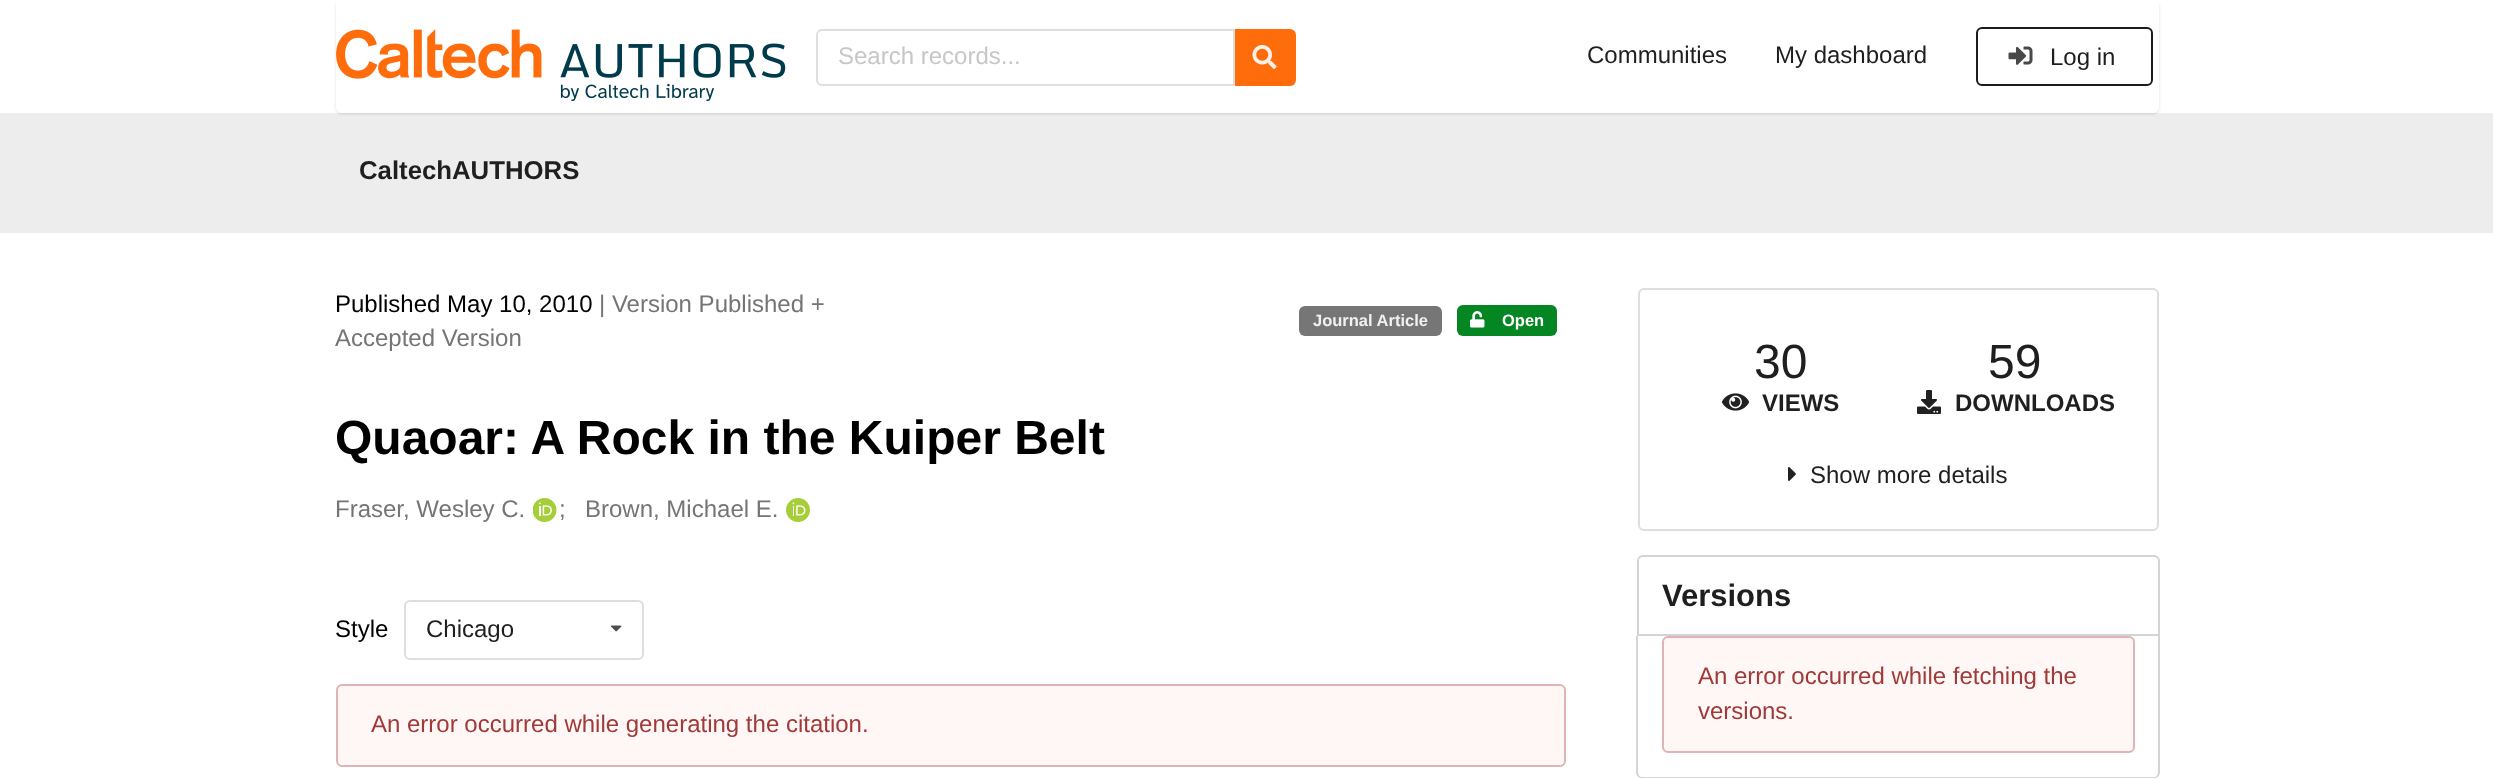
(async () => {
    const canvas = document.querySelector("canvas");
    canvas.width = 2493;
    canvas.height = 780;
    const context = canvas.getContext("2d");
    context.miterLimit = 4;
    context.fontKerning = "normal";
    function write(s, x, y, font, color) {
        context.font = font;
        context.fillStyle = color;
        context.fillText(s, x, y);
    }
    function block(x, y, w, h, color) {
        context.fillStyle = color;
        context.fillRect(x, y, w, h);
    }
    function card(x, y, w, h, r, color) {
        context.fillStyle = color;
        context.beginPath();
        context.roundRect(x, y, w, h, r);
        context.fill();
    }
    async function photo(src, x, y, w, h) {
        const img = new Image();
        img.src = src;
        await img.decode();
        context.drawImage(img, x, y, w, h);
    }

    block(0, 0, 2493, 780, "rgb(255, 255, 255)");
    block(0, 113, 2493, 120, "rgb(237, 237, 237)");
    context.save();
    context.beginPath();
    context.moveTo(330, 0);
    context.lineTo(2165, 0);
    context.lineTo(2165, 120);
    context.lineTo(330, 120);
    context.closePath();
    context.moveTo(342, 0);
    context.lineTo(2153, 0);
    context.bezierCurveTo(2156.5, 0, 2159, 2.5, 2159, 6);
    context.lineTo(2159, 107);
    context.bezierCurveTo(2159, 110.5, 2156.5, 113, 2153, 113);
    context.lineTo(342, 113);
    context.bezierCurveTo(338.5, 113, 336, 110.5, 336, 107);
    context.lineTo(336, 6);
    context.bezierCurveTo(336, 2.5, 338.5, 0, 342, 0);
    context.closePath();
    context.clip("evenodd");
    context.fillStyle = "rgba(34, 36, 38, 0.15)";
    context.filter = "blur(1.5px)";
    context.beginPath();
    context.roundRect(336, 2, 1823, 112, 6);
    context.fill();
    context.filter = "none";
    context.restore();
    await photo("media/1.png", 336, 29, 450, 72);
    context.beginPath();
    context.roundRect(817, 30, 417, 55, [5, 0, 0, 5]);
    context.strokeStyle = "rgb(222, 222, 222)";
    context.lineWidth = 2;
    context.stroke();
    write("Search records...", 838, 64, "24px Liberation Sans", "rgb(199, 199, 199)");
    context.fillStyle = "rgb(255, 108, 12)";
    context.beginPath();
    context.roundRect(1235, 29, 61, 57, [0, 6, 6, 0]);
    context.fill();
    await photo("media/2.png", 1252, 45, 25, 24);
    write("Communities", 1587, 63, "24px Liberation Sans", "rgb(31, 31, 31)");
    write("My dashboard", 1775, 63, "24px Liberation Sans", "rgb(31, 31, 31)");
    context.beginPath();
    context.roundRect(1977, 28, 175, 57, 5);
    context.strokeStyle = "rgb(27, 28, 29)";
    context.stroke();
    await photo("media/3.png", 2008, 46, 25, 19);
    write("Log in", 2050, 65, "24px Liberation Sans", "rgb(31, 31, 31)");
    write("CaltechAUTHORS", 359, 179, "bold 25.75px Liberation Sans", "rgb(31, 31, 31)");
    write("Published May 10, 2010", 335, 312, "24px Liberation Sans", "rgb(0, 0, 0)");
    write("| Version Published +", 599, 312, "24px Liberation Sans", "rgb(117, 117, 117)");
    write("Accepted Version", 335, 346, "24px Liberation Sans", "rgb(117, 117, 117)");
    card(1299, 306, 143, 30, 6, "rgb(118, 118, 118)");
    write("Journal Article", 1313, 326, "bold 16.5px Liberation Sans", "rgb(241, 241, 241)");
    card(1457, 305, 100, 31, 6, "rgb(4, 134, 34)");
    await photo("media/4.png", 1470, 311, 15, 17);
    write("Open", 1502, 326, "bold 16.5px Liberation Sans", "rgb(255, 255, 255)");
    write("Quaoar: A Rock in the Kuiper Belt", 335, 454, "bold 48px Liberation Sans", "rgb(0, 0, 0)");
    write("Fraser, Wesley C.", 335, 517, "24px Liberation Sans", "rgb(117, 117, 117)");
    await photo("media/5.png", 533, 498, 24, 24);
    write(";", 559, 517, "24px Liberation Sans", "rgb(117, 117, 117)");
    write("Brown, Michael E.", 585, 517, "24px Liberation Sans", "rgb(117, 117, 117)");
    await photo("media/6.png", 786, 498, 24, 24);
    write("Style", 335, 637, "24px Liberation Sans", "rgb(0, 0, 0)");
    context.beginPath();
    context.roundRect(405, 601, 238, 58, 5);
    context.strokeStyle = "rgb(222, 222, 222)";
    context.stroke();
    write("Chicago", 426, 637, "24px Liberation Sans", "rgb(31, 31, 31)");
    await photo("media/7.png", 610, 625, 12, 7);
    context.fillStyle = "rgb(255, 246, 246)";
    context.beginPath();
    context.roundRect(337, 685, 1228, 81, 5);
    context.fill();
    context.strokeStyle = "rgb(224, 180, 180)";
    context.stroke();
    write("An error occurred while generating the citation.", 371, 732, "24px Liberation Sans", "rgb(159, 58, 56)");
    context.beginPath();
    context.roundRect(1639, 289, 519, 241, 5);
    context.strokeStyle = "rgb(222, 222, 222)";
    context.stroke();
    write("30", 1754, 378, "48px Liberation Sans", "rgb(31, 31, 31)");
    await photo("media/8.png", 1722, 393, 27, 18);
    write("VIEWS", 1762, 411, "bold 24px Liberation Sans", "rgb(31, 31, 31)");
    write("59", 1988, 378, "48px Liberation Sans", "rgb(31, 31, 31)");
    await photo("media/9.png", 1917, 390, 24, 24);
    write("DOWNLOADS", 1955, 411, "bold 24px Liberation Sans", "rgb(31, 31, 31)");
    await photo("media/10.png", 1788, 467, 8, 14);
    write("Show more details", 1810, 483, "24px Liberation Sans", "rgb(31, 31, 31)");
    context.beginPath();
    context.roundRect(1638, 556, 521, 79, [5, 5, 0, 0]);
    context.strokeStyle = "rgb(212, 212, 213)";
    context.stroke();
    write("Versions", 1662, 606, "bold 31px Liberation Sans", "rgb(31, 31, 31)");
    context.fillStyle = "rgb(212, 212, 213)";
    context.beginPath();
    context.moveTo(1636, 636);
    context.lineTo(2160, 636);
    context.lineTo(2160, 772);
    context.bezierCurveTo(2160, 776, 2157, 778, 2154, 778);
    context.lineTo(1642, 778);
    context.bezierCurveTo(1639, 778, 1636, 776, 1636, 772);
    context.closePath();
    context.moveTo(1638, 636);
    context.lineTo(2158, 636);
    context.lineTo(2158, 772);
    context.bezierCurveTo(2158, 775, 2156, 777, 2154, 777);
    context.lineTo(1642, 777);
    context.bezierCurveTo(1640, 777, 1638, 775, 1638, 772);
    context.closePath();
    context.fill("evenodd");
    context.fillStyle = "rgb(255, 246, 246)";
    context.beginPath();
    context.roundRect(1663, 637, 471, 115, 5);
    context.fill();
    context.strokeStyle = "rgb(224, 180, 180)";
    context.stroke();
    write("An error occurred while fetching the", 1698, 684, "24px Liberation Sans", "rgb(159, 58, 56)");
    write("versions.", 1698, 719, "24px Liberation Sans", "rgb(159, 58, 56)");
})();
